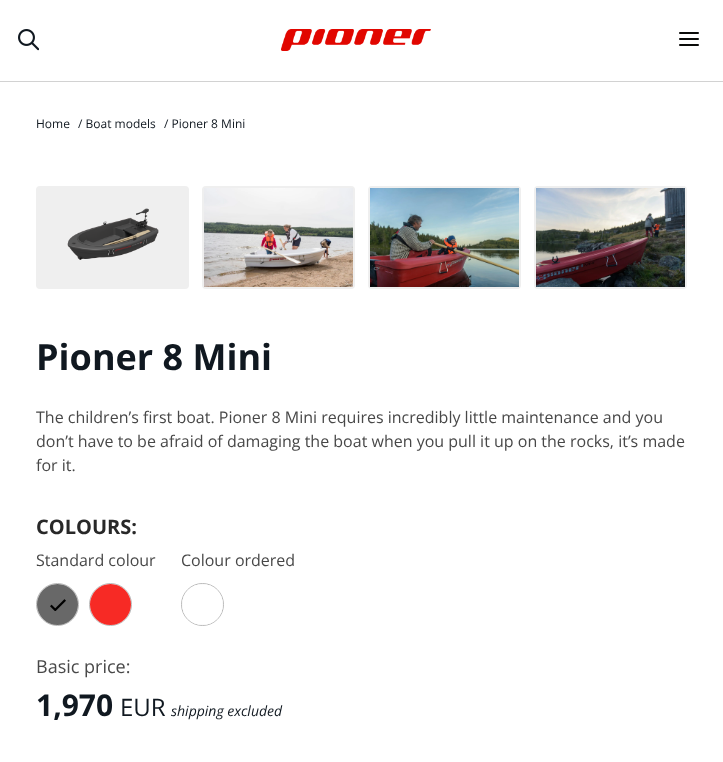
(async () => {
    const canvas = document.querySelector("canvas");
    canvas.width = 723;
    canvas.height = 762;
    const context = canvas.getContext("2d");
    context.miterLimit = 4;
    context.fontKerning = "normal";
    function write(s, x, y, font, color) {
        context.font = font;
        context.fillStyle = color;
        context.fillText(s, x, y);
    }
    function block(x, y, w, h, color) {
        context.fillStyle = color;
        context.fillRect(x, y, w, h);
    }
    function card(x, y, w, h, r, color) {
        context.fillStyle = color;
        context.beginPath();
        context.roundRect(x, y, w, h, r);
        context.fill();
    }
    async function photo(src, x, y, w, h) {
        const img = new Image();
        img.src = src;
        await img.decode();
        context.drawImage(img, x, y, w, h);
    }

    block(0, 0, 723, 762, "rgb(255, 255, 255)");
    await photo("media/1.png", 18, 29, 21, 22);
    await photo("media/2.png", 281, 29, 150, 22);
    await photo("media/3.png", 679, 32, 20, 14);
    block(0, 81, 723, 1, "rgb(210, 210, 210)");
    write("Home", 36, 128, "12px Open Sans", "rgb(16, 24, 32)");
    write("/ Boat models", 78, 128, "12px Open Sans", "rgb(16, 24, 32)");
    write("/ Pioner 8 Mini", 164, 128, "12px Open Sans", "rgb(16, 24, 32)");
    card(36, 186, 153, 103, 4, "rgb(239, 239, 239)");
    await photo("media/4.png", 67, 208, 92, 52);
    card(202, 186, 153, 103, 4, "rgb(239, 239, 239)");
    await photo("media/5.png", 204, 188, 149, 99);
    card(368, 186, 153, 103, 4, "rgb(239, 239, 239)");
    await photo("media/6.png", 370, 188, 149, 99);
    card(534, 186, 153, 103, 4, "rgb(239, 239, 239)");
    await photo("media/7.png", 536, 188, 149, 99);
    write("Pioner 8 Mini", 36, 370, "bold 36px Open Sans", "rgb(16, 24, 32)");
    write("The children’s first boat. Pioner 8 Mini requires incredibly little maintenance and you", 36, 423, "16px Open Sans", "rgb(72, 72, 72)");
    write("don’t have to be afraid of damaging the boat when you pull it up on the rocks, it’s made", 36, 447, "16px Open Sans", "rgb(72, 72, 72)");
    write("for it.", 36, 471, "16px Open Sans", "rgb(72, 72, 72)");
    write("COLOURS:", 36, 534, "bold 20px Open Sans", "rgb(40, 40, 40)");
    write("Standard colour", 36, 566, "16px Open Sans", "rgb(72, 72, 72)");
    context.beginPath();
    context.arc(57.5, 604.5, 21, 0, Math.PI * 2);
    context.strokeStyle = "rgb(185, 185, 185)";
    context.stroke();
    await photo("media/8.png", 37, 584, 41, 41);
    await photo("media/9.png", 50, 599, 16, 12);
    context.beginPath();
    context.arc(110.5, 604.5, 21, 0, Math.PI * 2);
    context.stroke();
    await photo("media/10.png", 90, 584, 41, 41);
    write("Colour ordered", 181, 566, "16px Open Sans", "rgb(72, 72, 72)");
    context.beginPath();
    context.arc(202.5, 604.5, 21, 0, Math.PI * 2);
    context.stroke();
    await photo("media/11.png", 182, 584, 41, 41);
    write("Basic price:", 36, 673, "18px Open Sans", "rgb(72, 72, 72)");
    write("1,970", 36, 716, "bold 30px Open Sans", "rgb(16, 24, 32)");
    write("EUR", 120, 716, "24px Open Sans", "rgb(16, 24, 32)");
    write("shipping excluded", 171, 716, "italic 14px Open Sans", "rgb(16, 24, 32)");
})();
